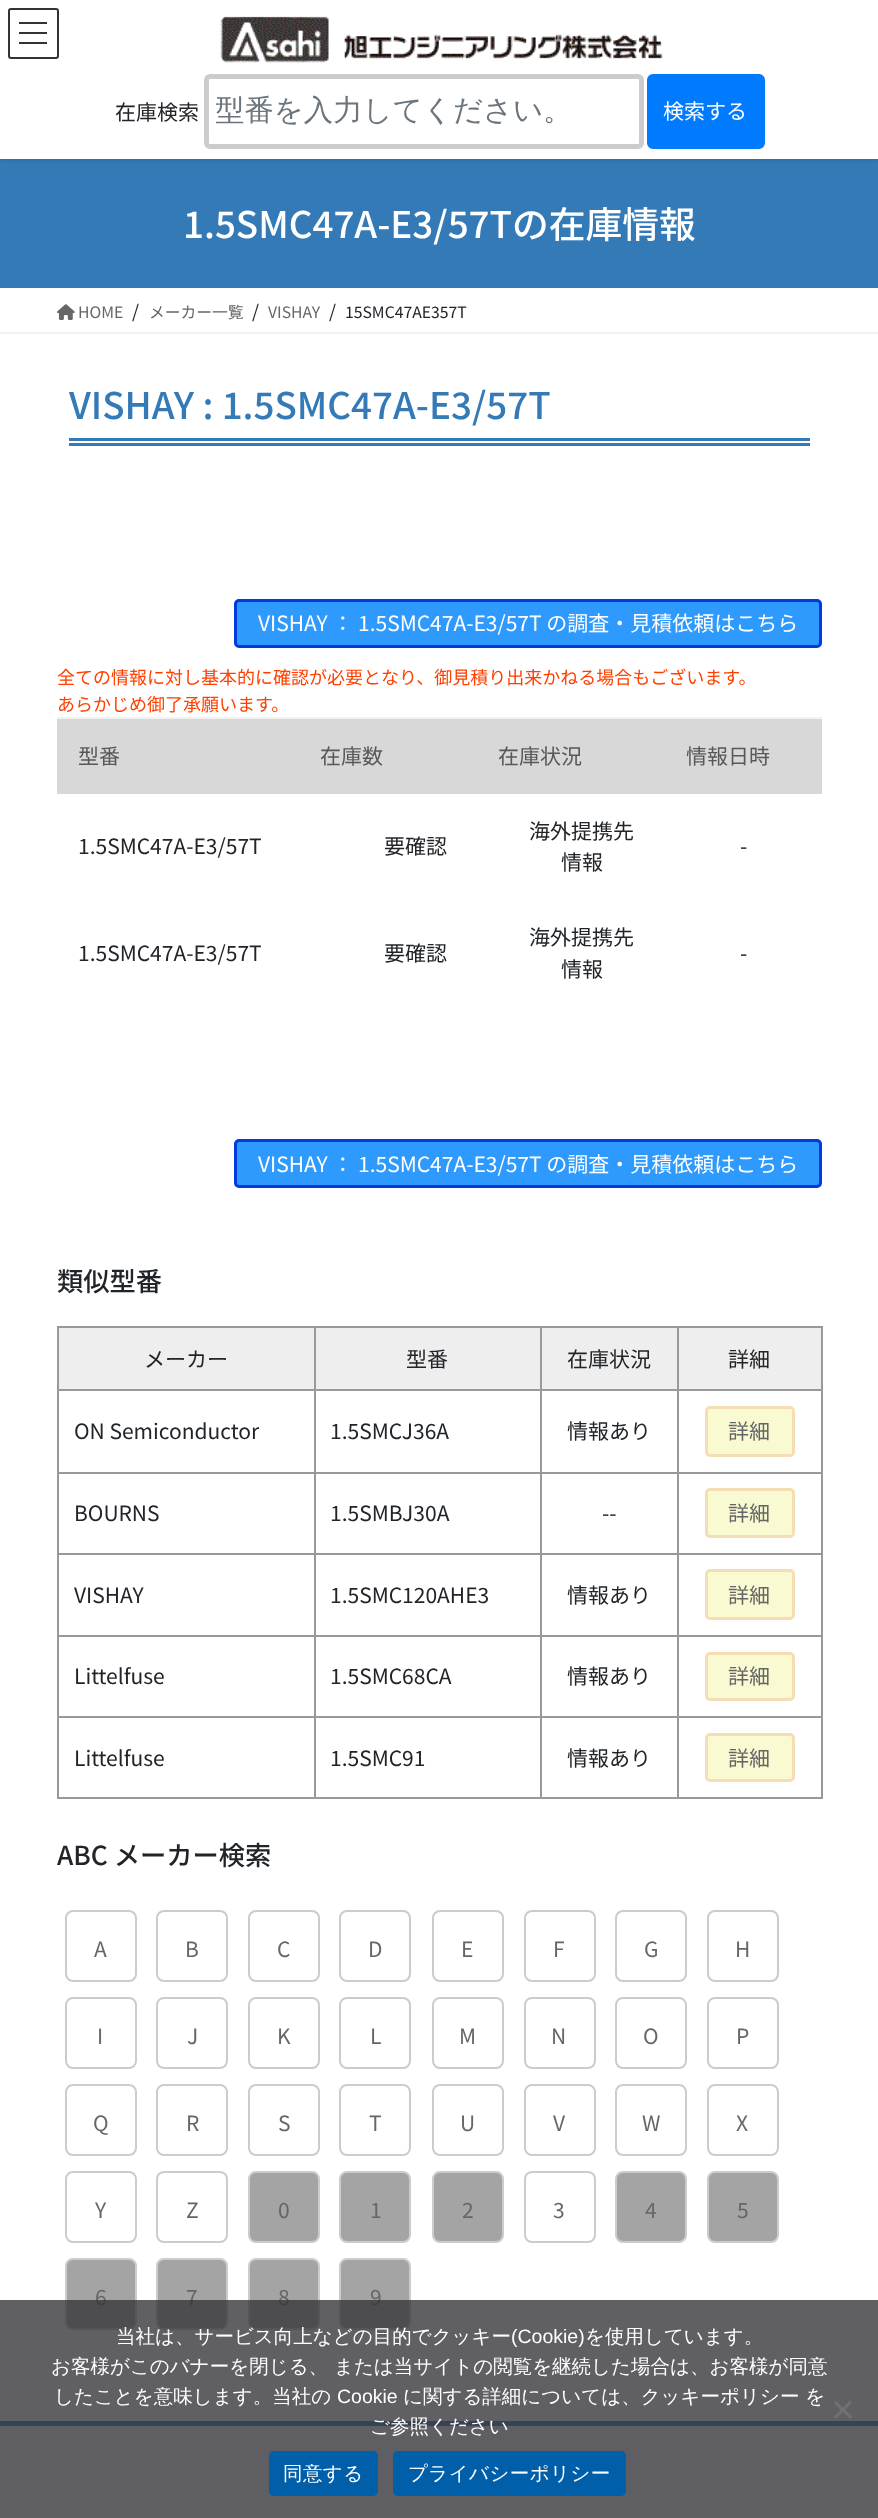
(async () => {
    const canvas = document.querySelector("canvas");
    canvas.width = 878;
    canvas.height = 2518;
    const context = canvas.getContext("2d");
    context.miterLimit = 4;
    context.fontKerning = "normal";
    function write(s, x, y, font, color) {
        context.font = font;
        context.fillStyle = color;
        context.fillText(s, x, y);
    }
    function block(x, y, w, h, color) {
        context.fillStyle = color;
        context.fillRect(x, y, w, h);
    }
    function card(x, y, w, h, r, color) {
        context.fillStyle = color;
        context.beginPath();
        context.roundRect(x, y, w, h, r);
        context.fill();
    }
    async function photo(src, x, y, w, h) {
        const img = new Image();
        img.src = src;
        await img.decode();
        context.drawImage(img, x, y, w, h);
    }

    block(0, 0, 878, 2518, "rgb(255, 255, 255)");
    block(0, 159, 878, 129, "rgb(51, 122, 183)");
    context.save();
    context.beginPath();
    context.rect(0, 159, 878, 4);
    context.clip();
    context.fillStyle = "rgba(0, 0, 0, 0.1)";
    context.filter = "blur(2px)";
    context.beginPath();
    context.rect(0, 2, 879, 159);
    context.fill();
    context.filter = "none";
    context.restore();
    block(19, 22, 28, 2, "rgb(51, 51, 51)");
    block(19, 32, 28, 2, "rgb(51, 51, 51)");
    block(19, 42, 28, 2, "rgb(51, 51, 51)");
    context.beginPath();
    context.roundRect(9, 9, 49, 49, 2);
    context.strokeStyle = "rgb(51, 51, 51)";
    context.lineWidth = 2;
    context.stroke();
    await photo("media/1.png", 220, 16, 443, 47);
    write("在庫検索", 115, 120, "21px Noto Sans JP", "rgb(33, 37, 41)");
    context.beginPath();
    context.roundRect(206.5, 76.5, 435, 70, 3.5);
    context.strokeStyle = "rgb(204, 204, 204)";
    context.lineWidth = 5;
    context.stroke();
    context.save();
    context.beginPath();
    context.rect(216, 90, 416, 41);
    context.clip();
    write("型番を入力してください。", 215, 120, "500 29.4px WenQuanYi Zen Hei", "rgb(108, 117, 125)");
    context.restore();
    context.fillStyle = "rgb(0, 123, 255)";
    context.beginPath();
    context.roundRect(648, 75, 116, 73, 5);
    context.fill();
    context.strokeStyle = "rgb(0, 123, 255)";
    context.lineWidth = 2;
    context.stroke();
    write("検索する", 663, 119, "21px Noto Sans JP", "rgb(255, 255, 255)");
    write("1.5SMC47A-E3/57Tの在庫情報", 183, 238, "500 36.75px Noto Sans JP", "rgb(255, 255, 255)");
    block(0, 332, 878, 2, "rgb(242, 242, 242)");
    await photo("media/2.png", 57, 304, 18, 16);
    write("HOME", 78, 318, "15.75px Noto Sans JP", "rgb(102, 102, 102)");
    write("/", 132, 318, "18px Noto Sans JP", "rgb(33, 37, 41)");
    write("メーカー一覧", 149, 318, "15.75px Noto Sans JP", "rgb(102, 102, 102)");
    write("/", 252, 318, "18px Noto Sans JP", "rgb(33, 37, 41)");
    write("VISHAY", 268, 318, "15.75px Noto Sans JP", "rgb(102, 102, 102)");
    write("/", 329, 318, "18px Noto Sans JP", "rgb(33, 37, 41)");
    write("15SMC47AE357T", 345, 318, "15.75px Noto Sans JP", "rgb(33, 37, 41)");
    block(69, 438, 741, 3, "rgb(51, 122, 183)");
    block(69, 443, 741, 3, "rgb(51, 122, 183)");
    write("VISHAY : 1.5SMC47A-E3/57T", 69, 419, "500 36.75px Noto Sans JP", "rgb(51, 122, 183)");
    context.fillStyle = "rgb(46, 154, 254)";
    context.beginPath();
    context.roundRect(235.5, 600.5, 585, 46, 3.5);
    context.fill();
    context.strokeStyle = "rgb(1, 58, 223)";
    context.lineWidth = 3;
    context.stroke();
    write("VISHAY ： 1.5SMC47A-E3/57T の調査・見積依頼はこちら", 258, 631, "21px Noto Sans JP", "rgb(255, 255, 255)");
    write("全ての情報に対し基本的に確認が必要となり、御見積り出来かねる場合もございます。", 57, 684, "18px Noto Sans JP", "rgb(255, 64, 0)");
    write("あらかじめ御了承願います。", 57, 711, "18px Noto Sans JP", "rgb(255, 64, 0)");
    block(57, 717, 765, 2, "rgb(242, 242, 242)");
    block(57, 719, 765, 75, "rgb(216, 216, 216)");
    write("型番", 78, 764, "21px Noto Sans JP", "rgb(88, 88, 88)");
    write("在庫数", 320, 764, "21px Noto Sans JP", "rgb(88, 88, 88)");
    write("在庫状況", 498, 764, "21px Noto Sans JP", "rgb(88, 88, 88)");
    write("情報日時", 686, 764, "21px Noto Sans JP", "rgb(88, 88, 88)");
    write("1.5SMC47A-E3/57T", 78, 854, "21px Noto Sans JP", "rgb(33, 37, 41)");
    write("要確認", 384, 854, "21px Noto Sans JP", "rgb(33, 37, 41)");
    write("海外提携先", 529, 839, "21px Noto Sans JP", "rgb(33, 37, 41)");
    write("情報", 561, 870, "21px Noto Sans JP", "rgb(33, 37, 41)");
    write("-", 740, 854, "21px Noto Sans JP", "rgb(33, 37, 41)");
    write("1.5SMC47A-E3/57T", 78, 961, "21px Noto Sans JP", "rgb(33, 37, 41)");
    write("要確認", 384, 961, "21px Noto Sans JP", "rgb(33, 37, 41)");
    write("海外提携先", 529, 945, "21px Noto Sans JP", "rgb(33, 37, 41)");
    write("情報", 561, 977, "21px Noto Sans JP", "rgb(33, 37, 41)");
    write("-", 740, 961, "21px Noto Sans JP", "rgb(33, 37, 41)");
    context.fillStyle = "rgb(46, 154, 254)";
    context.beginPath();
    context.roundRect(235.5, 1140.5, 585, 46, 3.5);
    context.fill();
    context.stroke();
    write("VISHAY ： 1.5SMC47A-E3/57T の調査・見積依頼はこちら", 258, 1172, "21px Noto Sans JP", "rgb(255, 255, 255)");
    write("類似型番", 57, 1291, "500 26.25px Noto Sans JP", "rgb(33, 37, 41)");
    block(57, 1326, 765, 2, "rgb(153, 153, 153)");
    block(821, 1326, 2, 473, "rgb(153, 153, 153)");
    block(59, 1328, 255, 61, "rgb(238, 238, 238)");
    block(677, 1797, 145, 2, "rgb(153, 153, 153)");
    block(677, 1716, 2, 83, "rgb(153, 153, 153)");
    block(677, 1716, 145, 2, "rgb(153, 153, 153)");
    block(677, 1635, 2, 83, "rgb(153, 153, 153)");
    block(677, 1635, 145, 2, "rgb(153, 153, 153)");
    block(677, 1553, 2, 84, "rgb(153, 153, 153)");
    block(677, 1553, 145, 2, "rgb(153, 153, 153)");
    block(677, 1472, 2, 82, "rgb(153, 153, 153)");
    block(677, 1472, 145, 2, "rgb(153, 153, 153)");
    block(677, 1389, 2, 84, "rgb(153, 153, 153)");
    block(677, 1389, 145, 2, "rgb(153, 153, 153)");
    block(677, 1326, 2, 65, "rgb(153, 153, 153)");
    block(540, 1797, 138, 2, "rgb(153, 153, 153)");
    block(540, 1716, 2, 83, "rgb(153, 153, 153)");
    block(540, 1716, 138, 2, "rgb(153, 153, 153)");
    block(540, 1635, 2, 83, "rgb(153, 153, 153)");
    block(540, 1635, 138, 2, "rgb(153, 153, 153)");
    block(540, 1553, 2, 84, "rgb(153, 153, 153)");
    block(540, 1553, 138, 2, "rgb(153, 153, 153)");
    block(540, 1472, 2, 82, "rgb(153, 153, 153)");
    block(540, 1472, 138, 2, "rgb(153, 153, 153)");
    block(540, 1389, 2, 84, "rgb(153, 153, 153)");
    block(540, 1389, 138, 2, "rgb(153, 153, 153)");
    block(540, 1326, 2, 65, "rgb(153, 153, 153)");
    block(314, 1797, 228, 2, "rgb(153, 153, 153)");
    block(314, 1716, 2, 83, "rgb(153, 153, 153)");
    block(314, 1716, 228, 2, "rgb(153, 153, 153)");
    block(314, 1635, 2, 83, "rgb(153, 153, 153)");
    block(314, 1635, 228, 2, "rgb(153, 153, 153)");
    block(314, 1553, 2, 84, "rgb(153, 153, 153)");
    block(314, 1553, 228, 2, "rgb(153, 153, 153)");
    block(314, 1472, 2, 82, "rgb(153, 153, 153)");
    block(314, 1472, 228, 2, "rgb(153, 153, 153)");
    block(314, 1389, 2, 84, "rgb(153, 153, 153)");
    block(314, 1389, 228, 2, "rgb(153, 153, 153)");
    block(314, 1326, 2, 65, "rgb(153, 153, 153)");
    block(57, 1797, 258, 2, "rgb(153, 153, 153)");
    block(57, 1716, 2, 83, "rgb(153, 153, 153)");
    block(57, 1716, 258, 2, "rgb(153, 153, 153)");
    block(57, 1635, 2, 83, "rgb(153, 153, 153)");
    block(57, 1635, 258, 2, "rgb(153, 153, 153)");
    block(57, 1553, 2, 84, "rgb(153, 153, 153)");
    block(57, 1553, 258, 2, "rgb(153, 153, 153)");
    block(57, 1472, 2, 82, "rgb(153, 153, 153)");
    block(57, 1472, 258, 2, "rgb(153, 153, 153)");
    block(57, 1389, 2, 84, "rgb(153, 153, 153)");
    block(57, 1389, 258, 2, "rgb(153, 153, 153)");
    block(57, 1326, 2, 65, "rgb(153, 153, 153)");
    write("メーカー", 144, 1367, "21px Noto Sans JP", "rgb(33, 37, 41)");
    block(316, 1328, 224, 61, "rgb(238, 238, 238)");
    write("型番", 406, 1367, "21px Noto Sans JP", "rgb(33, 37, 41)");
    block(542, 1328, 135, 61, "rgb(238, 238, 238)");
    write("在庫状況", 567, 1367, "21px Noto Sans JP", "rgb(33, 37, 41)");
    block(679, 1328, 142, 61, "rgb(238, 238, 238)");
    write("詳細", 728, 1367, "21px Noto Sans JP", "rgb(33, 37, 41)");
    write("ON Semiconductor", 74, 1439, "21px Noto Sans JP", "rgb(33, 37, 41)");
    write("1.5SMCJ36A", 330, 1439, "21px Noto Sans JP", "rgb(33, 37, 41)");
    write("情報あり", 567, 1439, "21px Noto Sans JP", "rgb(33, 37, 41)");
    context.fillStyle = "rgb(250, 250, 210)";
    context.beginPath();
    context.roundRect(706.5, 1407.5, 87, 48, 3.5);
    context.fill();
    context.strokeStyle = "rgb(245, 222, 179)";
    context.stroke();
    write("詳細", 728, 1439, "21px Noto Sans JP", "rgb(102, 102, 102)");
    write("BOURNS", 74, 1521, "21px Noto Sans JP", "rgb(33, 37, 41)");
    write("1.5SMBJ30A", 330, 1521, "21px Noto Sans JP", "rgb(33, 37, 41)");
    write("--", 602, 1521, "21px Noto Sans JP", "rgb(33, 37, 41)");
    context.fillStyle = "rgb(250, 250, 210)";
    context.beginPath();
    context.roundRect(706.5, 1489.5, 87, 47, 3.5);
    context.fill();
    context.stroke();
    write("詳細", 728, 1521, "21px Noto Sans JP", "rgb(102, 102, 102)");
    write("VISHAY", 74, 1603, "21px Noto Sans JP", "rgb(33, 37, 41)");
    write("1.5SMC120AHE3", 330, 1603, "21px Noto Sans JP", "rgb(33, 37, 41)");
    write("情報あり", 567, 1603, "21px Noto Sans JP", "rgb(33, 37, 41)");
    context.fillStyle = "rgb(250, 250, 210)";
    context.beginPath();
    context.roundRect(706.5, 1570.5, 87, 48, 3.5);
    context.fill();
    context.stroke();
    write("詳細", 728, 1603, "21px Noto Sans JP", "rgb(102, 102, 102)");
    write("Littelfuse", 74, 1684, "21px Noto Sans JP", "rgb(33, 37, 41)");
    write("1.5SMC68CA", 330, 1684, "21px Noto Sans JP", "rgb(33, 37, 41)");
    write("情報あり", 567, 1684, "21px Noto Sans JP", "rgb(33, 37, 41)");
    context.fillStyle = "rgb(250, 250, 210)";
    context.beginPath();
    context.roundRect(706.5, 1653.5, 87, 46, 3.5);
    context.fill();
    context.stroke();
    write("詳細", 728, 1684, "21px Noto Sans JP", "rgb(102, 102, 102)");
    write("Littelfuse", 74, 1766, "21px Noto Sans JP", "rgb(33, 37, 41)");
    write("1.5SMC91", 330, 1766, "21px Noto Sans JP", "rgb(33, 37, 41)");
    write("情報あり", 567, 1766, "21px Noto Sans JP", "rgb(33, 37, 41)");
    context.fillStyle = "rgb(250, 250, 210)";
    context.beginPath();
    context.roundRect(706.5, 1734.5, 87, 46, 3.5);
    context.fill();
    context.stroke();
    write("詳細", 728, 1766, "21px Noto Sans JP", "rgb(102, 102, 102)");
    write("ABC メーカー検索", 57, 1865, "500 26.25px Noto Sans JP", "rgb(33, 37, 41)");
    context.beginPath();
    context.roundRect(66, 1911, 70, 70, 7);
    context.strokeStyle = "rgb(204, 204, 204)";
    context.lineWidth = 2;
    context.stroke();
    write("A", 94, 1957, "21px Noto Sans JP", "rgb(102, 102, 102)");
    context.beginPath();
    context.roundRect(157, 1911, 70, 70, 7);
    context.stroke();
    write("B", 185, 1957, "21px Noto Sans JP", "rgb(102, 102, 102)");
    context.beginPath();
    context.roundRect(249, 1911, 70, 70, 7);
    context.stroke();
    write("C", 277, 1957, "21px Noto Sans JP", "rgb(102, 102, 102)");
    context.beginPath();
    context.roundRect(340, 1911, 70, 70, 7);
    context.stroke();
    write("D", 368, 1957, "21px Noto Sans JP", "rgb(102, 102, 102)");
    context.beginPath();
    context.roundRect(433, 1911, 70, 70, 7);
    context.stroke();
    write("E", 461, 1957, "21px Noto Sans JP", "rgb(102, 102, 102)");
    context.beginPath();
    context.roundRect(525, 1911, 70, 70, 7);
    context.stroke();
    write("F", 553, 1957, "21px Noto Sans JP", "rgb(102, 102, 102)");
    context.beginPath();
    context.roundRect(616, 1911, 70, 70, 7);
    context.stroke();
    write("G", 644, 1957, "21px Noto Sans JP", "rgb(102, 102, 102)");
    context.beginPath();
    context.roundRect(708, 1911, 70, 70, 7);
    context.stroke();
    write("H", 735, 1957, "21px Noto Sans JP", "rgb(102, 102, 102)");
    context.beginPath();
    context.roundRect(66, 1998, 70, 70, 7);
    context.stroke();
    write("I", 97, 2044, "21px Noto Sans JP", "rgb(102, 102, 102)");
    context.beginPath();
    context.roundRect(157, 1998, 70, 70, 7);
    context.stroke();
    write("J", 187, 2044, "21px Noto Sans JP", "rgb(102, 102, 102)");
    context.beginPath();
    context.roundRect(249, 1998, 70, 70, 7);
    context.stroke();
    write("K", 277, 2044, "21px Noto Sans JP", "rgb(102, 102, 102)");
    context.beginPath();
    context.roundRect(340, 1998, 70, 70, 7);
    context.stroke();
    write("L", 370, 2044, "21px Noto Sans JP", "rgb(102, 102, 102)");
    context.beginPath();
    context.roundRect(433, 1998, 70, 70, 7);
    context.stroke();
    write("M", 459, 2044, "21px Noto Sans JP", "rgb(102, 102, 102)");
    context.beginPath();
    context.roundRect(525, 1998, 70, 70, 7);
    context.stroke();
    write("N", 551, 2044, "21px Noto Sans JP", "rgb(102, 102, 102)");
    context.beginPath();
    context.roundRect(616, 1998, 70, 70, 7);
    context.stroke();
    write("O", 643, 2044, "21px Noto Sans JP", "rgb(102, 102, 102)");
    context.beginPath();
    context.roundRect(708, 1998, 70, 70, 7);
    context.stroke();
    write("P", 736, 2044, "21px Noto Sans JP", "rgb(102, 102, 102)");
    context.beginPath();
    context.roundRect(66, 2085, 70, 70, 7);
    context.stroke();
    write("Q", 93, 2131, "21px Noto Sans JP", "rgb(102, 102, 102)");
    context.beginPath();
    context.roundRect(157, 2085, 70, 70, 7);
    context.stroke();
    write("R", 186, 2131, "21px Noto Sans JP", "rgb(102, 102, 102)");
    context.beginPath();
    context.roundRect(249, 2085, 70, 70, 7);
    context.stroke();
    write("S", 278, 2131, "21px Noto Sans JP", "rgb(102, 102, 102)");
    context.beginPath();
    context.roundRect(340, 2085, 70, 70, 7);
    context.stroke();
    write("T", 369, 2131, "21px Noto Sans JP", "rgb(102, 102, 102)");
    context.beginPath();
    context.roundRect(433, 2085, 70, 70, 7);
    context.stroke();
    write("U", 460, 2131, "21px Noto Sans JP", "rgb(102, 102, 102)");
    context.beginPath();
    context.roundRect(525, 2085, 70, 70, 7);
    context.stroke();
    write("V", 553, 2131, "21px Noto Sans JP", "rgb(102, 102, 102)");
    context.beginPath();
    context.roundRect(616, 2085, 70, 70, 7);
    context.stroke();
    write("W", 642, 2131, "21px Noto Sans JP", "rgb(102, 102, 102)");
    context.beginPath();
    context.roundRect(708, 2085, 70, 70, 7);
    context.stroke();
    write("X", 736, 2131, "21px Noto Sans JP", "rgb(102, 102, 102)");
    context.beginPath();
    context.roundRect(66, 2172, 70, 70, 7);
    context.stroke();
    write("Y", 95, 2218, "21px Noto Sans JP", "rgb(102, 102, 102)");
    context.beginPath();
    context.roundRect(157, 2172, 70, 70, 7);
    context.stroke();
    write("Z", 186, 2218, "21px Noto Sans JP", "rgb(102, 102, 102)");
    context.fillStyle = "rgb(164, 164, 164)";
    context.beginPath();
    context.roundRect(249, 2172, 70, 70, 7);
    context.fill();
    context.stroke();
    write("0", 278, 2218, "21px Noto Sans JP", "rgb(102, 102, 102)");
    context.fillStyle = "rgb(164, 164, 164)";
    context.beginPath();
    context.roundRect(340, 2172, 70, 70, 7);
    context.fill();
    context.stroke();
    write("1", 370, 2218, "21px Noto Sans JP", "rgb(102, 102, 102)");
    context.fillStyle = "rgb(164, 164, 164)";
    context.beginPath();
    context.roundRect(433, 2172, 70, 70, 7);
    context.fill();
    context.stroke();
    write("2", 462, 2218, "21px Noto Sans JP", "rgb(102, 102, 102)");
    context.beginPath();
    context.roundRect(525, 2172, 70, 70, 7);
    context.stroke();
    write("3", 553, 2218, "21px Noto Sans JP", "rgb(102, 102, 102)");
    context.fillStyle = "rgb(164, 164, 164)";
    context.beginPath();
    context.roundRect(616, 2172, 70, 70, 7);
    context.fill();
    context.stroke();
    write("4", 645, 2218, "21px Noto Sans JP", "rgb(102, 102, 102)");
    context.fillStyle = "rgb(164, 164, 164)";
    context.beginPath();
    context.roundRect(708, 2172, 70, 70, 7);
    context.fill();
    context.stroke();
    write("5", 737, 2218, "21px Noto Sans JP", "rgb(102, 102, 102)");
    context.fillStyle = "rgb(164, 164, 164)";
    context.beginPath();
    context.roundRect(66, 2259, 70, 70, 7);
    context.fill();
    context.stroke();
    write("6", 95, 2305, "21px Noto Sans JP", "rgb(102, 102, 102)");
    context.fillStyle = "rgb(164, 164, 164)";
    context.beginPath();
    context.roundRect(157, 2259, 70, 70, 7);
    context.fill();
    context.stroke();
    write("7", 186, 2305, "21px Noto Sans JP", "rgb(102, 102, 102)");
    context.fillStyle = "rgb(164, 164, 164)";
    context.beginPath();
    context.roundRect(249, 2259, 70, 70, 7);
    context.fill();
    context.stroke();
    write("8", 278, 2305, "21px Noto Sans JP", "rgb(102, 102, 102)");
    context.fillStyle = "rgb(164, 164, 164)";
    context.beginPath();
    context.roundRect(340, 2259, 70, 70, 7);
    context.fill();
    context.stroke();
    write("9", 370, 2305, "21px Noto Sans JP", "rgb(102, 102, 102)");
    block(0, 2426, 878, 92, "rgb(249, 249, 249)");
    block(0, 2421, 878, 5, "rgb(51, 122, 183)");
    block(0, 2300, 878, 218, "rgba(53, 53, 58, 0.79)");
    write("当社は、サービス向上などの目的でクッキー", 116, 2343, "500 19.5px WenQuanYi Zen Hei", "rgb(255, 255, 255)");
    write("(Cookie)", 511, 2343, "19.5px Liberation Sans", "rgb(255, 255, 255)");
    write("を使用しています。", 585, 2343, "500 19.5px WenQuanYi Zen Hei", "rgb(255, 255, 255)");
    write("お客様がこのバナーを閉じる、 または当サイトの閲覧を継続した場合は、お客様が同意", 51, 2373, "500 19.5px WenQuanYi Zen Hei", "rgb(255, 255, 255)");
    write("したことを意味します。当社の", 54, 2403, "500 19.5px WenQuanYi Zen Hei", "rgb(255, 255, 255)");
    write("Cookie", 337, 2403, "19.5px Liberation Sans", "rgb(255, 255, 255)");
    write("に関する詳細については、クッキーポリシー を", 403, 2403, "500 19.5px WenQuanYi Zen Hei", "rgb(255, 255, 255)");
    write("ご参照ください", 370, 2433, "500 19.5px WenQuanYi Zen Hei", "rgb(255, 255, 255)");
    context.fillStyle = "rgb(112, 112, 114)";
    context.beginPath();
    context.moveTo(850, 2400.5);
    context.lineTo(852, 2403);
    context.lineTo(836, 2419);
    context.lineTo(834, 2416.5);
    context.closePath();
    context.fill();
    context.beginPath();
    context.moveTo(834, 2403);
    context.lineTo(836, 2400.5);
    context.lineTo(852, 2416.5);
    context.lineTo(850, 2419);
    context.closePath();
    context.fill();
    card(269, 2451, 109, 45, 5, "rgb(0, 95, 168)");
    context.letterSpacing = "0.4px";
    write("同意する", 283, 2480, "500 19.5px WenQuanYi Zen Hei", "rgb(255, 255, 255)");
    card(393, 2451, 233, 45, 5, "rgb(0, 95, 168)");
    write("プライバシーポリシー", 408, 2480, "500 19.5px WenQuanYi Zen Hei", "rgb(255, 255, 255)");
})();
